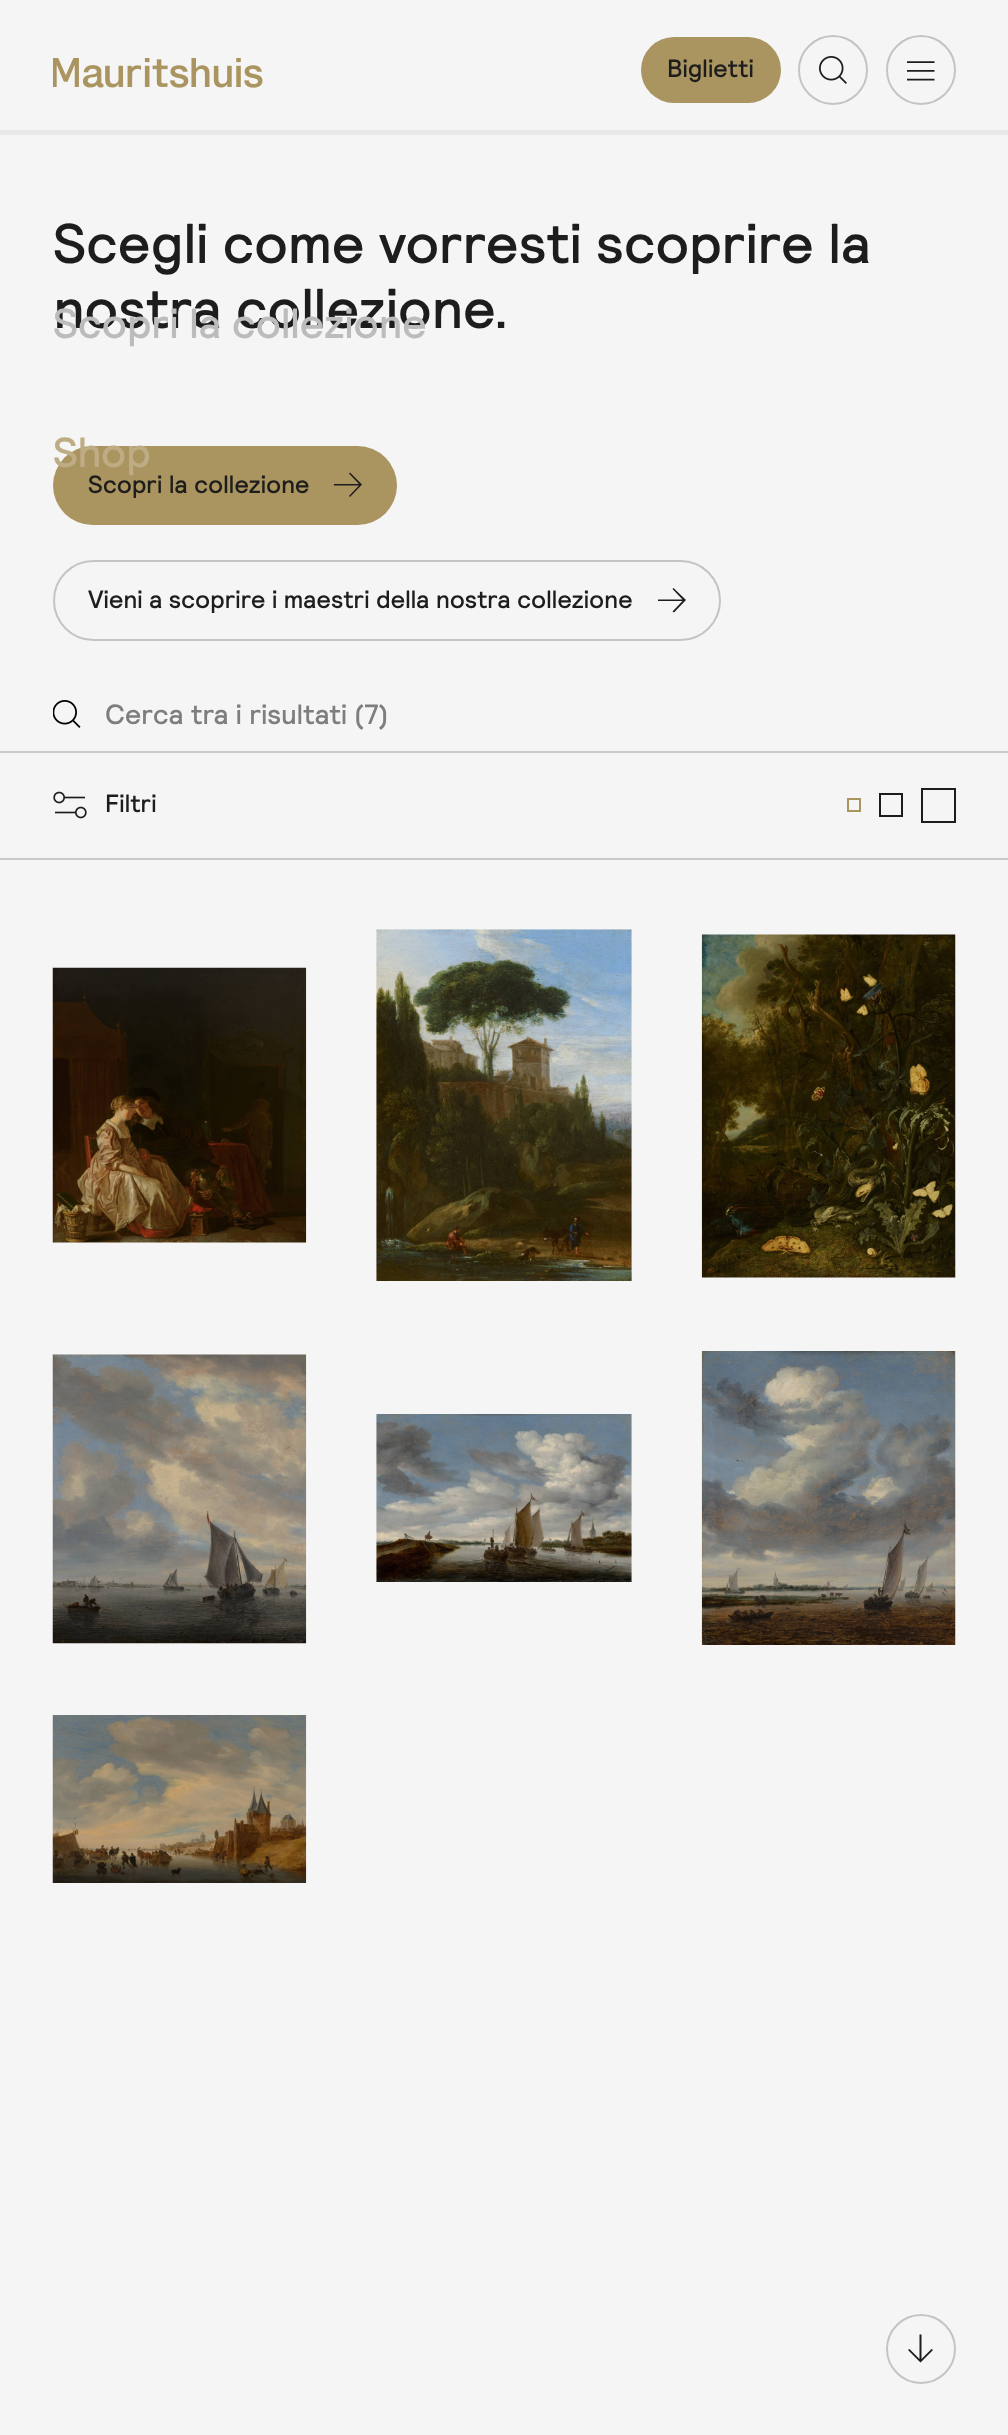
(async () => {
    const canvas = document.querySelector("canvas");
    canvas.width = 1008;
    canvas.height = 2435;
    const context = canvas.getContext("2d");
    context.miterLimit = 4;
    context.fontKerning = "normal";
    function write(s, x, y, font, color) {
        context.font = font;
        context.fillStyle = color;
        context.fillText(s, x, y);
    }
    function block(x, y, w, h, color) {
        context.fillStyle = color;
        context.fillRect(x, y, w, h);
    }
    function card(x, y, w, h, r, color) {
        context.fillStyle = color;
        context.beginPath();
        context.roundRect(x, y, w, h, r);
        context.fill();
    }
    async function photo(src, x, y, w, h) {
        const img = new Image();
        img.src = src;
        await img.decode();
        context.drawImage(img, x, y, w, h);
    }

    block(0, 0, 1008, 2435, "rgb(245, 245, 245)");
    await photo("media/1.png", 53, 58, 210, 30);
    card(641, 37, 140, 66, 33, "rgb(170, 148, 95)");
    write("Biglietti", 667, 77, "500 24.9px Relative", "rgb(29, 29, 29)");
    context.beginPath();
    context.arc(833, 70, 34, 0, Math.PI * 2);
    context.strokeStyle = "rgb(196, 196, 196)";
    context.lineWidth = 2;
    context.stroke();
    await photo("media/2.png", 819, 56, 28, 28);
    context.beginPath();
    context.arc(921, 70, 34, 0, Math.PI * 2);
    context.stroke();
    await photo("media/3.png", 907, 61, 28, 20);
    write("nostra collezione.", 53, 328, "500 56px Relative", "rgb(29, 29, 29)");
    write("Scopri la collezione", 53, 338, "500 42px Relative", "rgb(188, 188, 188)");
    card(53, 446, 344, 79, 39.5, "rgb(170, 148, 95)");
    write("Shop", 53, 467, "500 42px Relative", "rgb(189, 172, 132)");
    write("Scegli come vorresti scoprire la", 53, 263, "500 56px Relative", "rgb(29, 29, 29)");
    write("Scopri la collezione", 88, 493, "500 24.9px Relative", "rgb(29, 29, 29)");
    context.beginPath();
    context.moveTo(350, 472.5);
    context.lineTo(362, 484.5);
    context.lineTo(350, 497);
    context.lineTo(349, 496);
    context.lineTo(359, 485.5);
    context.lineTo(334, 485.5);
    context.lineTo(334, 484);
    context.lineTo(359, 484);
    context.lineTo(349, 473.5);
    context.closePath();
    context.fill();
    context.beginPath();
    context.roundRect(54, 561, 666, 79, 39.5);
    context.stroke();
    write("Vieni a scoprire i maestri della nostra collezione", 88, 608, "500 24.9px Relative", "rgb(29, 29, 29)");
    context.beginPath();
    context.moveTo(673.5, 588);
    context.lineTo(686, 600);
    context.lineTo(674, 612.5);
    context.lineTo(672.5, 611.5);
    context.lineTo(682.5, 601);
    context.lineTo(658, 601);
    context.lineTo(658, 599.5);
    context.lineTo(682.5, 599.5);
    context.lineTo(672.5, 589);
    context.closePath();
    context.fill();
    block(0, 130, 1008, 5, "rgb(233, 233, 233)");
    block(0, 858, 1008, 2, "rgb(201, 201, 201)");
    block(0, 751, 1008, 2, "rgb(201, 201, 201)");
    await photo("media/4.png", 53, 700, 28, 28);
    write("Cerca tra i risultati (7)", 105, 724, "500 28px Relative", "rgb(126, 126, 126)");
    await photo("media/5.png", 53, 791, 34, 28);
    write("Filtri", 105, 812, "500 24.9px Relative", "rgb(29, 29, 29)");
    context.strokeStyle = "rgb(170, 148, 95)";
    context.strokeRect(848, 799, 12, 12);
    context.strokeStyle = "rgb(29, 29, 29)";
    context.strokeRect(880, 794, 22, 22);
    context.strokeRect(922, 789, 33, 33);
    await photo("media/6.png", 52, 967, 255, 276);
    await photo("media/7.png", 376, 929, 256, 352);
    await photo("media/8.png", 701, 934, 255, 344);
    await photo("media/9.png", 52, 1354, 255, 290);
    await photo("media/10.png", 376, 1414, 256, 168);
    await photo("media/11.png", 701, 1351, 255, 294);
    await photo("media/12.png", 52, 1715, 255, 168);
    context.beginPath();
    context.arc(921, 2349, 34, 0, Math.PI * 2);
    context.strokeStyle = "rgb(196, 196, 196)";
    context.stroke();
    context.beginPath();
    context.moveTo(933, 2350);
    context.lineTo(920.5, 2362.5);
    context.lineTo(908, 2350);
    context.lineTo(909.5, 2349);
    context.lineTo(919.5, 2359);
    context.lineTo(919.5, 2334.5);
    context.lineTo(921.5, 2334.5);
    context.lineTo(921.5, 2359);
    context.lineTo(931.5, 2349);
    context.closePath();
    context.fill();
})();
